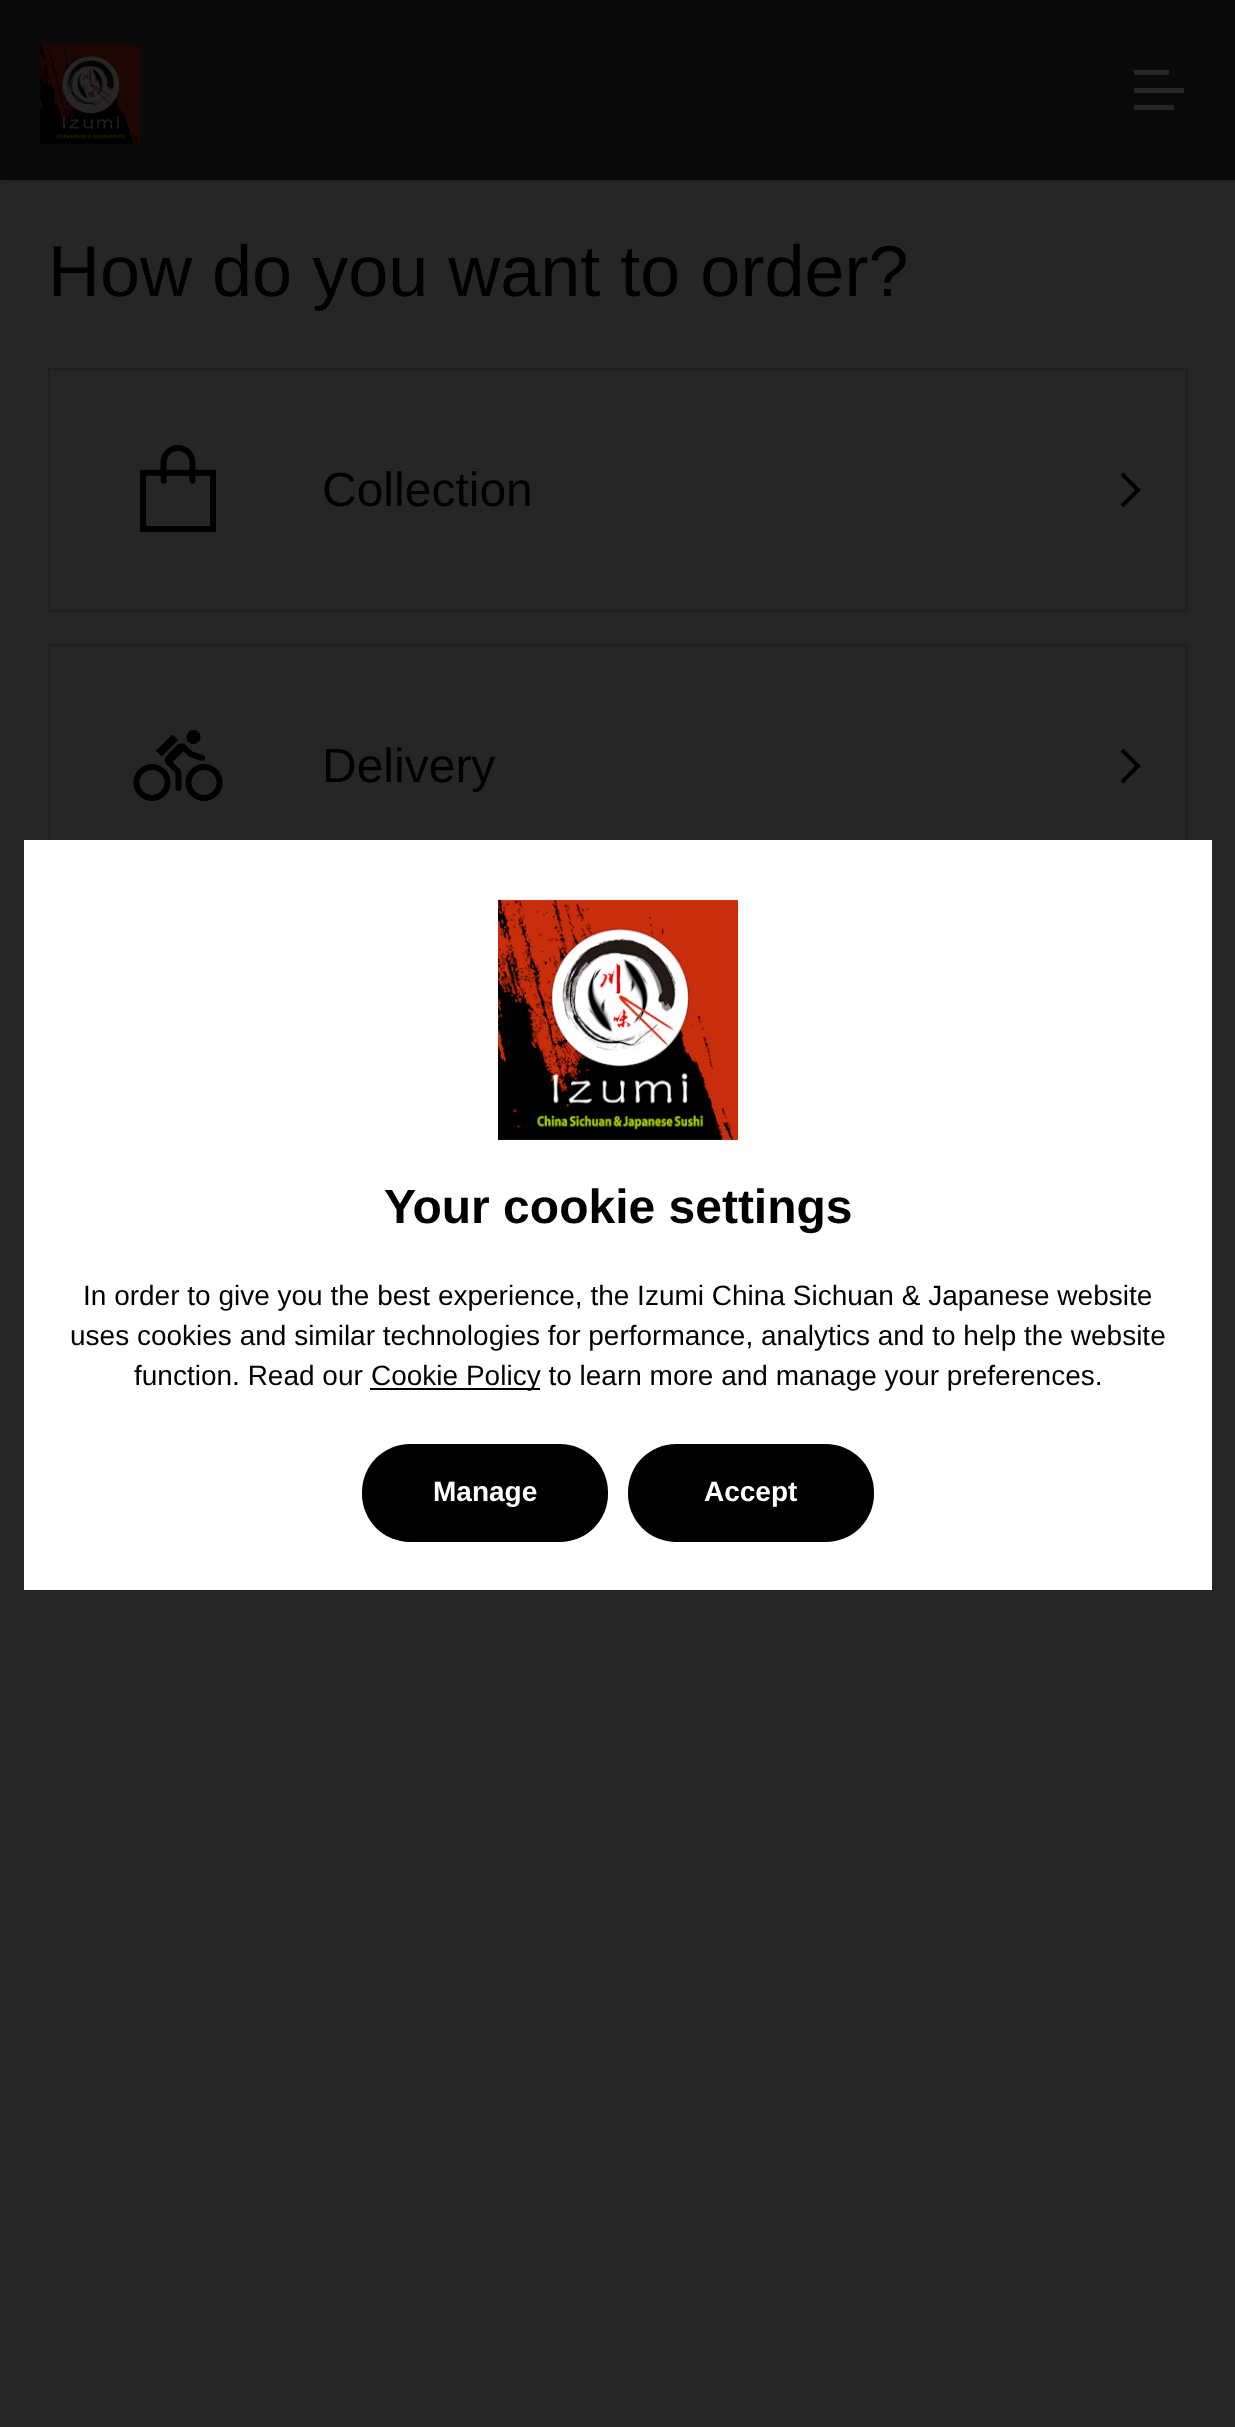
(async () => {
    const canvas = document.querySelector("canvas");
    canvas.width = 1235;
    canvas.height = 2427;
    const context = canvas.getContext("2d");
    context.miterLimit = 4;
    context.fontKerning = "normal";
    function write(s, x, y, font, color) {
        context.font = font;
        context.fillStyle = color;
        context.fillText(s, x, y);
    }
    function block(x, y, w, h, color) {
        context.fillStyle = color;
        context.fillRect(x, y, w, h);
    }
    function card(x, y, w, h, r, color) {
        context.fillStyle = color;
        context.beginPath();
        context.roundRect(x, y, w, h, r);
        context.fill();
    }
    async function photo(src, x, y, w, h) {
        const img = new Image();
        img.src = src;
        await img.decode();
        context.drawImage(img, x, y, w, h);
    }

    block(0, 0, 1235, 2427, "rgb(38, 38, 38)");
    context.fillStyle = "rgb(34, 34, 34)";
    context.beginPath();
    context.moveTo(2, 180);
    context.lineTo(2, 182);
    context.lineTo(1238, 182);
    context.lineTo(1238, 2);
    context.lineTo(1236, 2);
    context.lineTo(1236, 180);
    context.closePath();
    context.fill();
    block(0, 0, 1235, 180, "rgb(10, 10, 10)");
    await photo("media/1.png", 40, 44, 100, 100);
    block(1134, 70, 35, 5, "rgb(38, 38, 38)");
    block(1134, 88, 50, 5, "rgb(38, 38, 38)");
    block(1134, 105, 40, 5, "rgb(38, 38, 38)");
    write("How do you want to order?", 48, 296, "72px Liberation Sans", "rgb(0, 0, 0)");
    context.strokeStyle = "rgb(31, 31, 31)";
    context.lineWidth = 2;
    context.strokeRect(49, 369, 1138, 242);
    await photo("media/2.png", 140, 445, 76, 87);
    write("Collection", 322, 506, "48px Liberation Sans", "rgb(0, 0, 0)");
    context.beginPath();
    context.moveTo(1122, 474);
    context.lineTo(1138, 490);
    context.lineTo(1122, 506);
    context.strokeStyle = "rgb(0, 0, 0)";
    context.lineWidth = 4;
    context.stroke();
    context.strokeStyle = "rgb(31, 31, 31)";
    context.lineWidth = 2;
    context.strokeRect(49, 645, 1138, 242);
    await photo("media/3.png", 133, 730, 90, 71);
    write("Delivery", 322, 782, "48px Liberation Sans", "rgb(0, 0, 0)");
    context.beginPath();
    context.moveTo(1122, 750);
    context.lineTo(1138, 766);
    context.lineTo(1122, 782);
    context.strokeStyle = "rgb(0, 0, 0)";
    context.lineWidth = 4;
    context.stroke();
    block(24, 840, 1188, 750, "rgb(255, 255, 255)");
    await photo("media/4.png", 498, 899, 240, 241);
    write("Your cookie settings", 384, 1223, "bold 48px Liberation Sans", "rgb(0, 0, 0)");
    write("In order to give you the best experience, the Izumi China Sichuan & Japanese website", 83, 1305, "28px Liberation Sans", "rgb(0, 0, 0)");
    write("uses cookies and similar technologies for performance, analytics and to help the website", 70, 1345, "28px Liberation Sans", "rgb(0, 0, 0)");
    write("function. Read our", 134, 1385, "28px Liberation Sans", "rgb(0, 0, 0)");
    block(370, 1388, 170, 2, "rgb(0, 0, 0)");
    write("Cookie Policy to learn more and manage your preferences.", 371, 1385, "28px Liberation Sans", "rgb(0, 0, 0)");
    card(362, 1444, 246, 98, 48, "rgb(0, 0, 0)");
    write("Manage", 433, 1501, "bold 28px Liberation Sans", "rgb(255, 255, 255)");
    card(628, 1444, 246, 98, 48, "rgb(0, 0, 0)");
    write("Accept", 704, 1501, "bold 28px Liberation Sans", "rgb(255, 255, 255)");
})();
